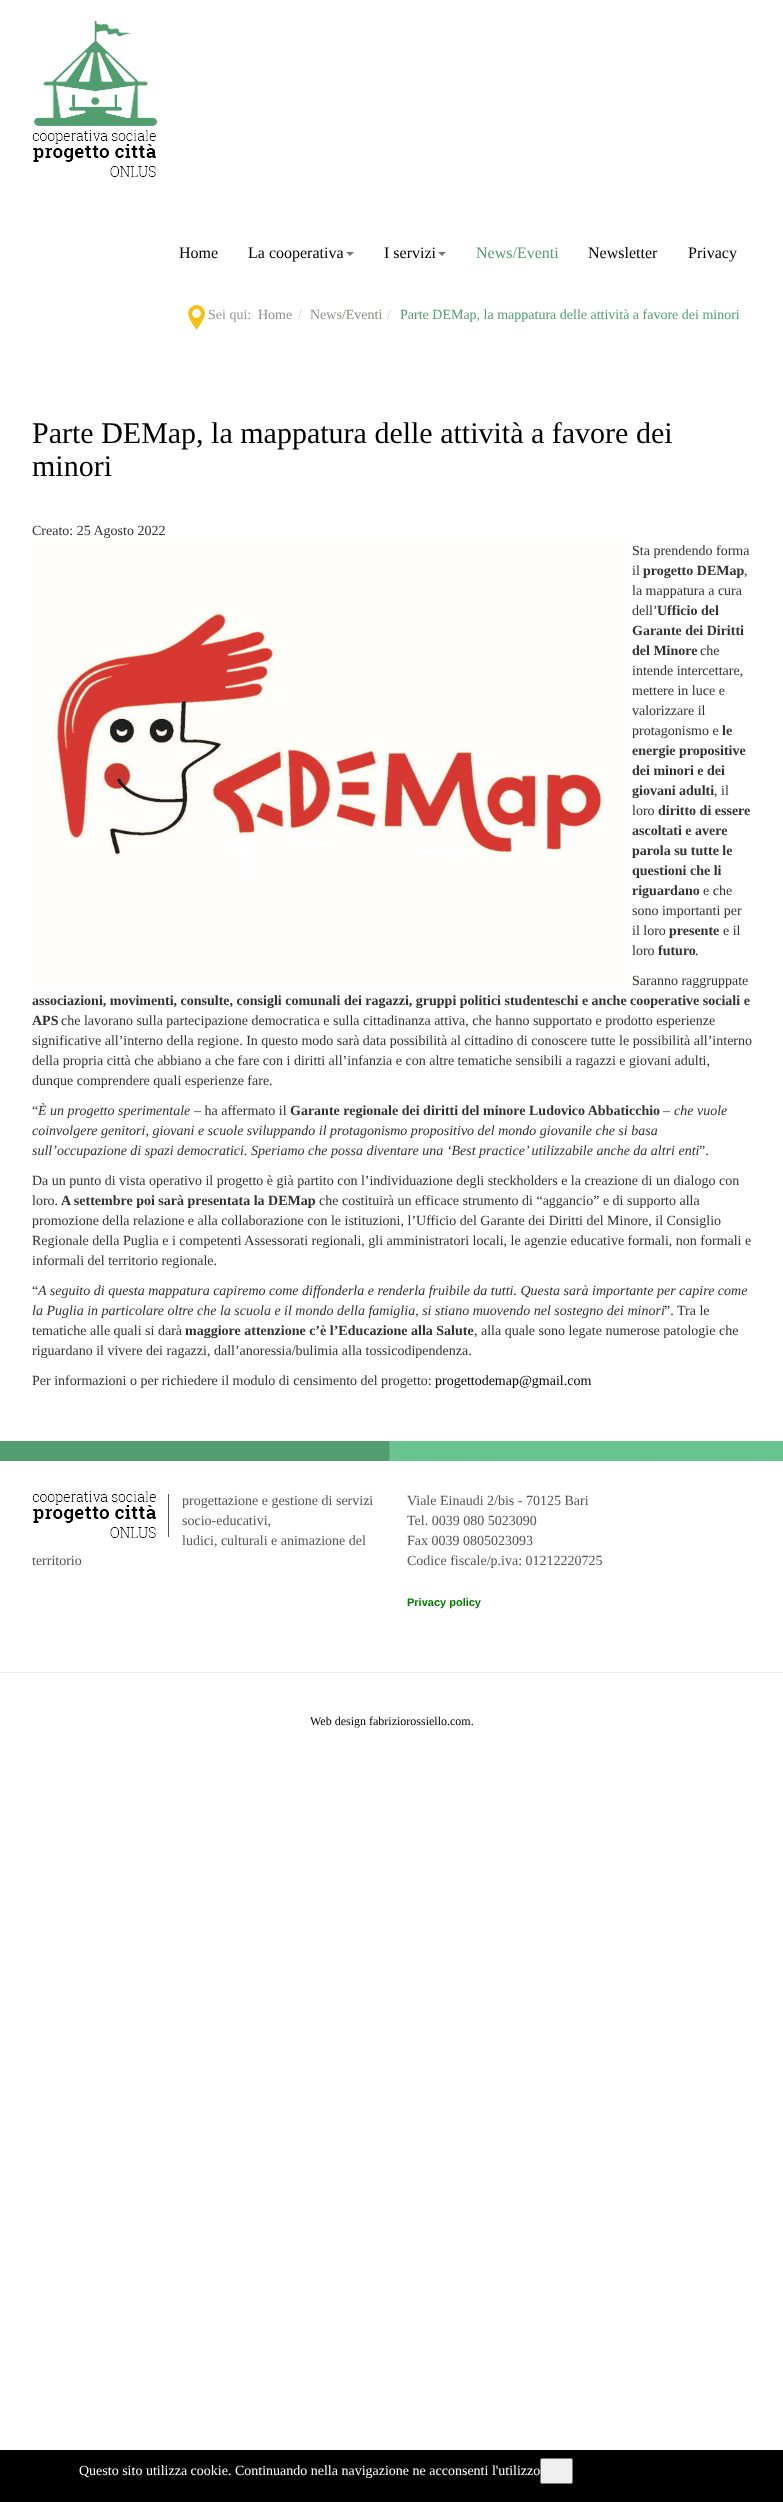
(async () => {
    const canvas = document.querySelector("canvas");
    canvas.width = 783;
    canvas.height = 2502;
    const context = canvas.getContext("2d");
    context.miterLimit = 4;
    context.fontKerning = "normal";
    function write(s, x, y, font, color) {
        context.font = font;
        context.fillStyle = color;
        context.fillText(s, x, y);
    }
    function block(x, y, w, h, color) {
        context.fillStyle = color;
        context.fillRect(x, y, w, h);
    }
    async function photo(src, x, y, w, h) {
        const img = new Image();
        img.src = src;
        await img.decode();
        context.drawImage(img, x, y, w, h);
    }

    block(0, 0, 783, 2502, "rgb(255, 255, 255)");
    await photo("media/1.png", 32, 20, 125, 157);
    write("Home", 179, 258, "16px Liberation Serif", "rgb(0, 0, 0)");
    write("La cooperativa", 248, 258, "16px Liberation Serif", "rgb(0, 0, 0)");
    context.fillStyle = "rgb(119, 119, 119)";
    context.beginPath();
    context.moveTo(346, 252);
    context.lineTo(354, 252);
    context.lineTo(350, 256);
    context.closePath();
    context.fill();
    write("I servizi", 384, 258, "16px Liberation Serif", "rgb(0, 0, 0)");
    context.fillStyle = "rgb(119, 119, 119)";
    context.beginPath();
    context.moveTo(438, 252);
    context.lineTo(446, 252);
    context.lineTo(442, 256);
    context.closePath();
    context.fill();
    write("News/Eventi", 476, 258, "16px Liberation Serif", "rgb(85, 160, 113)");
    write("Newsletter", 588, 258, "16px Liberation Serif", "rgb(0, 0, 0)");
    write("Privacy", 688, 258, "16px Liberation Serif", "rgb(0, 0, 0)");
    await photo("media/2.png", 188, 305, 17, 25);
    write("Sei qui:", 208, 319, "14px Liberation Serif", "rgb(153, 153, 153)");
    write("Home", 258, 319, "14px Liberation Serif", "rgb(143, 142, 138)");
    write("/", 298, 319, "14px Liberation Serif", "rgb(204, 204, 204)");
    write("News/Eventi", 310, 319, "14px Liberation Serif", "rgb(143, 142, 138)");
    write("/", 387, 319, "14px Liberation Serif", "rgb(204, 204, 204)");
    write("Parte DEMap, la mappatura delle attività a favore dei minori", 400, 319, "14px Liberation Serif", "rgb(85, 160, 113)");
    write("Parte DEMap, la mappatura delle attività a favore dei", 32, 443, "30px Liberation Serif", "rgb(0, 0, 0)");
    write("minori", 32, 476, "30px Liberation Serif", "rgb(0, 0, 0)");
    write("Creato: 25 Agosto 2022", 32, 535, "14px Liberation Serif", "rgb(51, 51, 51)");
    await photo("media/3.png", 32, 541, 600, 445);
    write("Sta prendendo forma", 632, 555, "14px Liberation Serif", "rgb(51, 51, 51)");
    write("il", 632, 575, "14px Liberation Serif", "rgb(51, 51, 51)");
    write("progetto DEMap", 643, 575, "bold 14px Liberation Serif", "rgb(51, 51, 51)");
    write(",", 744, 575, "14px Liberation Serif", "rgb(51, 51, 51)");
    write("la mappatura a cura", 632, 595, "14px Liberation Serif", "rgb(51, 51, 51)");
    write("dell’", 632, 615, "14px Liberation Serif", "rgb(51, 51, 51)");
    write("Ufficio del", 657, 615, "bold 14px Liberation Serif", "rgb(51, 51, 51)");
    write("Garante dei Diritti", 632, 635, "bold 14px Liberation Serif", "rgb(51, 51, 51)");
    write("del Minore", 632, 655, "bold 14px Liberation Serif", "rgb(51, 51, 51)");
    write("che", 700, 655, "14px Liberation Serif", "rgb(51, 51, 51)");
    write("intende intercettare,", 632, 675, "14px Liberation Serif", "rgb(51, 51, 51)");
    write("mettere in luce e", 632, 695, "14px Liberation Serif", "rgb(51, 51, 51)");
    write("valorizzare il", 632, 715, "14px Liberation Serif", "rgb(51, 51, 51)");
    write("protagonismo e", 632, 735, "14px Liberation Serif", "rgb(51, 51, 51)");
    write("le", 722, 735, "bold 14px Liberation Serif", "rgb(51, 51, 51)");
    write("energie propositive", 632, 755, "bold 14px Liberation Serif", "rgb(51, 51, 51)");
    write("dei minori e dei", 632, 775, "bold 14px Liberation Serif", "rgb(51, 51, 51)");
    write("giovani adulti", 632, 795, "bold 14px Liberation Serif", "rgb(51, 51, 51)");
    write(", il", 714, 795, "14px Liberation Serif", "rgb(51, 51, 51)");
    write("loro", 632, 815, "14px Liberation Serif", "rgb(51, 51, 51)");
    write("diritto di essere", 658, 815, "bold 14px Liberation Serif", "rgb(51, 51, 51)");
    write("ascoltati e avere", 632, 835, "bold 14px Liberation Serif", "rgb(51, 51, 51)");
    write("parola su tutte le", 632, 855, "bold 14px Liberation Serif", "rgb(51, 51, 51)");
    write("questioni che li", 632, 875, "bold 14px Liberation Serif", "rgb(51, 51, 51)");
    write("riguardano", 632, 895, "bold 14px Liberation Serif", "rgb(51, 51, 51)");
    write("e che", 703, 895, "14px Liberation Serif", "rgb(51, 51, 51)");
    write("sono importanti per", 632, 915, "14px Liberation Serif", "rgb(51, 51, 51)");
    write("il loro", 632, 935, "14px Liberation Serif", "rgb(51, 51, 51)");
    write("presente", 669, 935, "bold 14px Liberation Serif", "rgb(51, 51, 51)");
    write("e il", 723, 935, "14px Liberation Serif", "rgb(51, 51, 51)");
    write("loro", 632, 955, "14px Liberation Serif", "rgb(51, 51, 51)");
    write("futuro", 658, 955, "bold 14px Liberation Serif", "rgb(51, 51, 51)");
    write(".", 695, 955, "14px Liberation Serif", "rgb(51, 51, 51)");
    write("Saranno raggruppate", 632, 985, "14px Liberation Serif", "rgb(51, 51, 51)");
    write("associazioni, movimenti, consulte, consigli comunali dei ragazzi, gruppi politici studenteschi e anche cooperative sociali e", 32, 1005, "bold 14px Liberation Serif", "rgb(51, 51, 51)");
    write("APS", 32, 1025, "bold 14px Liberation Serif", "rgb(51, 51, 51)");
    write("che lavorano sulla partecipazione democratica e sulla cittadinanza attiva, che hanno supportato e prodotto esperienze", 61, 1025, "14px Liberation Serif", "rgb(51, 51, 51)");
    write("significative all’interno della regione. In questo modo sarà data possibilità al cittadino di conoscere tutte le possibilità all’interno", 32, 1045, "14px Liberation Serif", "rgb(51, 51, 51)");
    write("della propria città che abbiano a che fare con i diritti all’infanzia e con altre tematiche sensibili a ragazzi e giovani adulti,", 32, 1065, "14px Liberation Serif", "rgb(51, 51, 51)");
    write("dunque comprendere quali esperienze fare.", 32, 1085, "14px Liberation Serif", "rgb(51, 51, 51)");
    write("“", 32, 1115, "14px Liberation Serif", "rgb(51, 51, 51)");
    write("È un progetto sperimentale", 38, 1115, "italic 14px Liberation Serif", "rgb(51, 51, 51)");
    write("– ha affermato il", 194, 1115, "14px Liberation Serif", "rgb(51, 51, 51)");
    write("Garante regionale dei diritti del minore Ludovico Abbaticchio", 290, 1115, "bold 14px Liberation Serif", "rgb(51, 51, 51)");
    write("–", 663, 1115, "14px Liberation Serif", "rgb(51, 51, 51)");
    write("che vuole", 674, 1115, "italic 14px Liberation Serif", "rgb(51, 51, 51)");
    write("coinvolgere genitori, giovani e scuole sviluppando il protagonismo propositivo del mondo giovanile che si basa", 32, 1135, "italic 14px Liberation Serif", "rgb(51, 51, 51)");
    write("sull’occupazione di spazi democratici. Speriamo che possa diventare una ‘Best practice’ utilizzabile anche da altri enti", 32, 1155, "italic 14px Liberation Serif", "rgb(51, 51, 51)");
    write("”.", 699, 1155, "14px Liberation Serif", "rgb(51, 51, 51)");
    write("Da un punto di vista operativo il progetto è già partito con l’individuazione degli steckholders e la creazione di un dialogo con", 32, 1185, "14px Liberation Serif", "rgb(51, 51, 51)");
    write("loro.", 32, 1205, "14px Liberation Serif", "rgb(51, 51, 51)");
    write("A settembre poi sarà presentata la DEMap", 61, 1205, "bold 14px Liberation Serif", "rgb(51, 51, 51)");
    write("che costituirà un efficace strumento di “aggancio” e di supporto alla", 319, 1205, "14px Liberation Serif", "rgb(51, 51, 51)");
    write("promozione della relazione e alla collaborazione con le istituzioni, l’Ufficio del Garante dei Diritti del Minore, il Consiglio", 32, 1225, "14px Liberation Serif", "rgb(51, 51, 51)");
    write("Regionale della Puglia e i competenti Assessorati regionali, gli amministratori locali, le agenzie educative formali, non formali e", 32, 1245, "14px Liberation Serif", "rgb(51, 51, 51)");
    write("informali del territorio regionale.", 32, 1265, "14px Liberation Serif", "rgb(51, 51, 51)");
    write("“", 32, 1295, "14px Liberation Serif", "rgb(51, 51, 51)");
    write("A seguito di questa mappatura capiremo come diffonderla e renderla fruibile da tutti. Questa sarà importante per capire come", 38, 1295, "italic 14px Liberation Serif", "rgb(51, 51, 51)");
    write("la Puglia in particolare oltre che la scuola e il mondo della famiglia, si stiano muovendo nel sostegno dei minori", 32, 1315, "italic 14px Liberation Serif", "rgb(51, 51, 51)");
    write("”. Tra le", 664, 1315, "14px Liberation Serif", "rgb(51, 51, 51)");
    write("tematiche alle quali si darà", 32, 1335, "14px Liberation Serif", "rgb(51, 51, 51)");
    write("maggiore attenzione c’è l’Educazione alla Salute", 185, 1335, "bold 14px Liberation Serif", "rgb(51, 51, 51)");
    write(", alla quale sono legate numerose patologie che", 474, 1335, "14px Liberation Serif", "rgb(51, 51, 51)");
    write("riguardano il vivere dei ragazzi, dall’anoressia/bulimia alla tossicodipendenza.", 32, 1355, "14px Liberation Serif", "rgb(51, 51, 51)");
    write("Per informazioni o per richiedere il modulo di censimento del progetto:", 32, 1385, "14px Liberation Serif", "rgb(51, 51, 51)");
    write("progettodemap@gmail.com", 435, 1385, "14px Liberation Serif", "rgb(0, 0, 0)");
    await photo("media/4.png", 0, 1441, 783, 20);
    await photo("media/5.png", 32, 1491, 137, 47);
    write("progettazione e gestione di servizi", 182, 1505, "14px Liberation Serif", "rgb(85, 85, 85)");
    write("socio-educativi,", 182, 1525, "14px Liberation Serif", "rgb(85, 85, 85)");
    write("ludici, culturali e animazione del", 182, 1545, "14px Liberation Serif", "rgb(85, 85, 85)");
    write("territorio", 32, 1565, "14px Liberation Serif", "rgb(85, 85, 85)");
    write("Viale Einaudi 2/bis - 70125 Bari", 407, 1505, "14px Liberation Serif", "rgb(85, 85, 85)");
    write("Tel. 0039 080 5023090", 407, 1525, "14px Liberation Serif", "rgb(85, 85, 85)");
    write("Fax 0039 0805023093", 407, 1545, "14px Liberation Serif", "rgb(85, 85, 85)");
    write("Codice fiscale/p.iva: 01212220725", 407, 1565, "14px Liberation Serif", "rgb(85, 85, 85)");
    write("Privacy policy", 407, 1606, "bold 11px Liberation Sans", "rgb(0, 128, 0)");
    block(0, 1672, 783, 1, "rgb(238, 238, 238)");
    write("Web design fabriziorossiello.com.", 310, 1725, "12px Liberation Serif", "rgb(0, 0, 0)");
    block(0, 2450, 783, 52, "rgb(0, 0, 0)");
    write("Questo sito utilizza cookie. Continuando nella navigazione ne acconsenti l'utilizzo", 79, 2475, "14px Liberation Serif", "rgb(255, 255, 255)");
    context.fillStyle = "rgb(239, 239, 239)";
    context.beginPath();
    context.roundRect(540.5, 2458.5, 32, 25, 1.5);
    context.fill();
    context.strokeStyle = "rgb(118, 118, 118)";
    context.stroke();
})();
